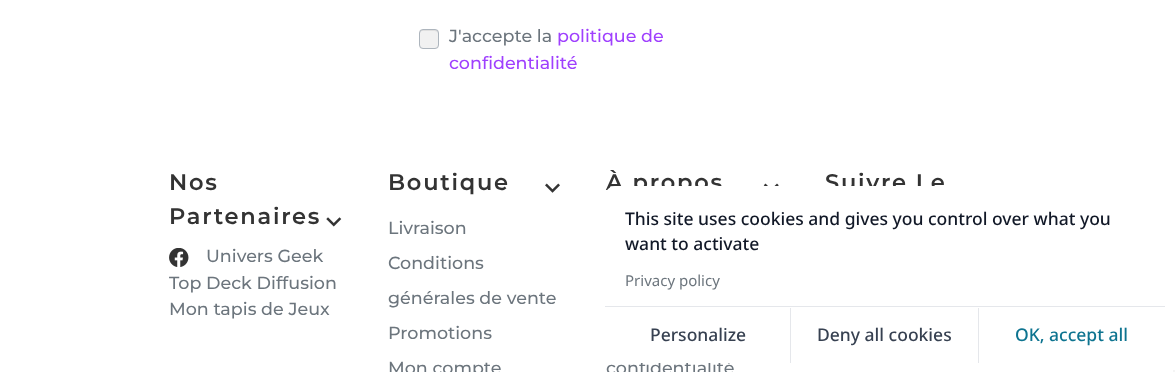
(async () => {
    const canvas = document.querySelector("canvas");
    canvas.width = 1175;
    canvas.height = 372;
    const context = canvas.getContext("2d");
    context.miterLimit = 4;
    context.fontKerning = "normal";
    function write(s, x, y, font, color) {
        context.font = font;
        context.fillStyle = color;
        context.fillText(s, x, y);
    }
    function block(x, y, w, h, color) {
        context.fillStyle = color;
        context.fillRect(x, y, w, h);
    }
    function card(x, y, w, h, r, color) {
        context.fillStyle = color;
        context.beginPath();
        context.roundRect(x, y, w, h, r);
        context.fill();
    }
    async function photo(src, x, y, w, h) {
        const img = new Image();
        img.src = src;
        await img.decode();
        context.drawImage(img, x, y, w, h);
    }

    block(0, 0, 1175, 372, "rgb(255, 255, 255)");
    card(419, 29, 20, 20, 4, "rgb(241, 241, 241)");
    context.fillStyle = "rgb(223, 223, 223)";
    context.beginPath();
    context.moveTo(422, 31);
    context.lineTo(433, 31);
    context.bezierCurveTo(437, 31, 438, 32, 438, 34.5);
    context.bezierCurveTo(438, 30.5, 437.5, 30, 433.5, 30);
    context.lineTo(424.5, 30);
    context.bezierCurveTo(421.5, 30, 420, 30, 420, 33.5);
    context.bezierCurveTo(420, 32, 421, 31, 422, 31);
    context.closePath();
    context.moveTo(438, 45.5);
    context.lineTo(438, 46.5);
    context.closePath();
    context.fill("evenodd");
    context.beginPath();
    context.roundRect(419.5, 29.5, 19, 19, 3.5);
    context.strokeStyle = "rgb(173, 181, 189)";
    context.stroke();
    write("J'accepte la", 449, 42, "500 17.5px Montserrat", "rgb(108, 117, 125)");
    write("politique de", 557, 42, "500 17.5px Montserrat", "rgb(159, 64, 254)");
    write("confidentialité", 449, 69, "500 17.5px Montserrat", "rgb(159, 64, 254)");
    context.letterSpacing = "1.75px";
    write("Nos", 169, 190, "600 22.5px Montserrat", "rgb(51, 51, 51)");
    write("Partenaires", 169, 224, "600 22.5px Montserrat", "rgb(51, 51, 51)");
    await photo("media/1.png", 326, 217, 16, 10);
    await photo("media/2.png", 169, 248, 20, 19);
    context.letterSpacing = "0px";
    write("Univers Geek", 206, 262, "500 17.5px Montserrat", "rgb(108, 117, 125)");
    write("Top Deck Diffusion", 169, 289, "500 17.5px Montserrat", "rgb(108, 117, 125)");
    write("Mon tapis de Jeux", 169, 315, "500 17.5px Montserrat", "rgb(108, 117, 125)");
    context.letterSpacing = "1.75px";
    write("Boutique", 388, 190, "600 22.5px Montserrat", "rgb(51, 51, 51)");
    await photo("media/3.png", 545, 183, 15, 10);
    context.letterSpacing = "0px";
    write("Livraison", 388, 234, "500 17.5px Montserrat", "rgb(108, 117, 125)");
    write("Conditions", 388, 269, "500 17.5px Montserrat", "rgb(108, 117, 125)");
    write("générales de vente", 388, 304, "500 17.5px Montserrat", "rgb(108, 117, 125)");
    write("Promotions", 388, 339, "500 17.5px Montserrat", "rgb(108, 117, 125)");
    write("Mon compte", 388, 374, "500 17.5px Montserrat", "rgb(108, 117, 125)");
    context.letterSpacing = "1.75px";
    write("À propos", 606, 190, "600 22.5px Montserrat", "rgb(51, 51, 51)");
    await photo("media/4.png", 763, 183, 16, 3);
    context.letterSpacing = "0px";
    write("confidentialité", 606, 374, "500 17.5px Montserrat", "rgb(108, 117, 125)");
    context.letterSpacing = "1.75px";
    write("Suivre Le", 825, 190, "600 22.5px Montserrat", "rgb(51, 51, 51)");
    card(605, 186, 560, 177, 10, "rgb(255, 255, 255)");
    block(605, 306, 560, 1, "rgb(229, 231, 235)");
    context.letterSpacing = "0px";
    write("This site uses cookies and gives you control over what you", 625, 225, "500 17.5px Noto Sans", "rgb(17, 24, 39)");
    write("want to activate", 625, 250, "500 17.5px Noto Sans", "rgb(17, 24, 39)");
    write("Privacy policy", 625, 286, "15px Noto Sans", "rgb(108, 117, 125)");
    block(790, 308, 1, 55, "rgb(229, 231, 235)");
    write("Personalize", 650, 341, "500 17.5px Noto Sans", "rgb(55, 65, 81)");
    block(978, 308, 1, 55, "rgb(229, 231, 235)");
    write("Deny all cookies", 817, 341, "500 17.5px Noto Sans", "rgb(55, 65, 81)");
    write("OK, accept all", 1015, 341, "500 17.5px Noto Sans", "rgb(14, 116, 144)");
    block(1173, 370, 2, 2, "rgb(245, 245, 245)");
})();
